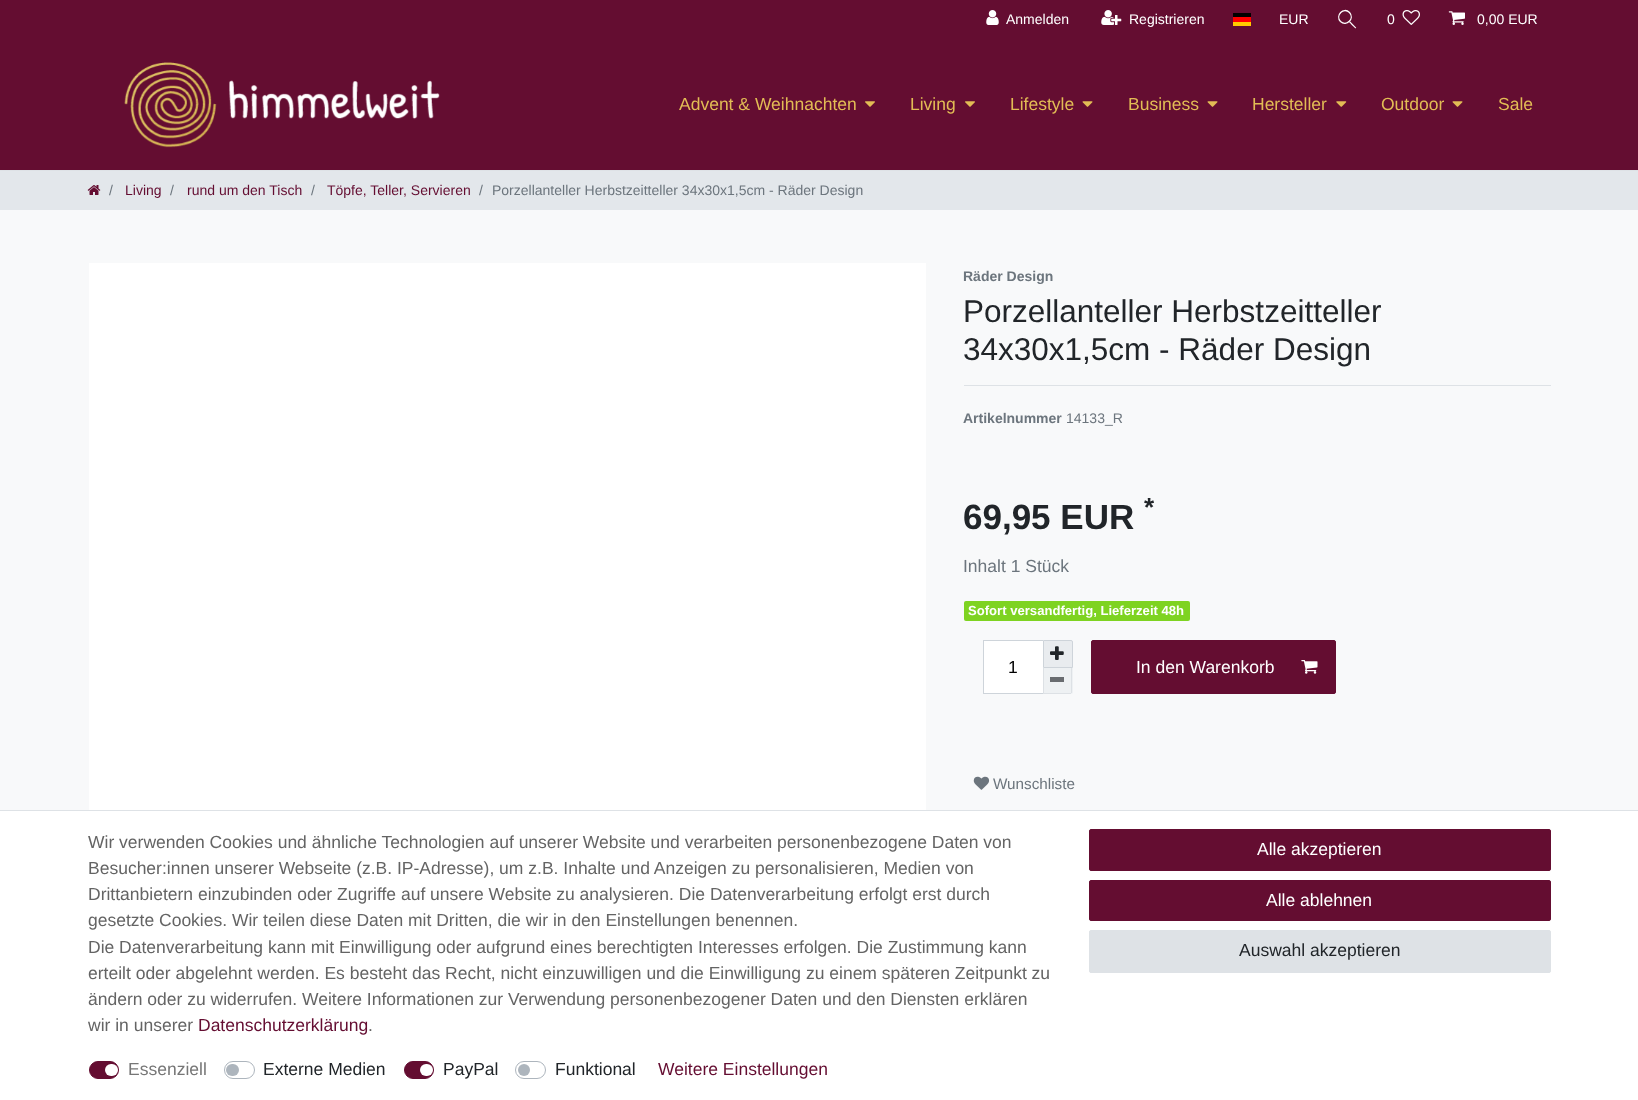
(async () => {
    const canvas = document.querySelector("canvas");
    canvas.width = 1638;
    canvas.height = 1100;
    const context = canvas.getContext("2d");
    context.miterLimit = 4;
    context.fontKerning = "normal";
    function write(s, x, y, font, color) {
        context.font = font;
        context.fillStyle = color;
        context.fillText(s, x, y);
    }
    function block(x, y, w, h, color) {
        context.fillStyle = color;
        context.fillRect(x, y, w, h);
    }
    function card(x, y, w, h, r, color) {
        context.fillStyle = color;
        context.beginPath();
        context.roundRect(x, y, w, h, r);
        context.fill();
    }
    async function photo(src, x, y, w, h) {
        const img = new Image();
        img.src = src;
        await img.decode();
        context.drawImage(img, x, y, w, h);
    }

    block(0, 0, 1638, 1100, "rgb(248, 249, 250)");
    block(0, 0, 1638, 170, "rgb(100, 13, 49)");
    await photo("media/1.png", 986, 10, 13, 15);
    write("Anmelden", 1006, 24, "14px Liberation Sans", "rgb(255, 255, 255)");
    await photo("media/2.png", 1101, 10, 21, 15);
    write("Registrieren", 1129, 24, "14px Liberation Sans", "rgb(255, 255, 255)");
    block(1233, 22, 18, 4, "rgb(255, 204, 0)");
    block(1233, 13, 18, 4, "rgb(0, 0, 0)");
    block(1233, 17, 18, 5, "rgb(255, 0, 0)");
    write("EUR", 1279, 24, "14px Liberation Sans", "rgb(255, 255, 255)");
    context.beginPath();
    context.moveTo(1355, 28);
    context.bezierCurveTo(1353.5, 26.5, 1342.5, 15.5, 1342.5, 15);
    context.lineTo(1343.5, 14.5);
    context.lineTo(1356, 27.5);
    context.bezierCurveTo(1356.5, 28, 1355.5, 28.5, 1355, 28);
    context.closePath();
    context.fill();
    context.fillStyle = "rgb(100, 13, 49)";
    context.beginPath();
    context.moveTo(1340, 22);
    context.bezierCurveTo(1334, 15.5, 1343.5, 5.5, 1350, 12);
    context.bezierCurveTo(1356, 18.5, 1346.5, 28, 1340, 22);
    context.closePath();
    context.fill();
    context.beginPath();
    context.moveTo(1340.5, 21.5);
    context.bezierCurveTo(1335, 15.5, 1343.5, 6.5, 1349.5, 12.5);
    context.bezierCurveTo(1355, 18.5, 1346.5, 27, 1340.5, 21.5);
    context.closePath();
    context.strokeStyle = "rgb(255, 255, 255)";
    context.lineWidth = 1.3;
    context.stroke();
    write("0", 1387, 24, "14px Liberation Sans", "rgb(255, 255, 255)");
    await photo("media/3.png", 1402, 10, 18, 15);
    await photo("media/4.png", 1448, 11, 17, 14);
    write("0,00 EUR", 1477, 24, "14px Liberation Sans", "rgb(255, 255, 255)");
    block(0, 170, 1638, 1, "rgb(222, 226, 230)");
    await photo("media/5.png", 124, 62, 316, 86);
    write("Advent & Weihnachten", 679, 110, "17.5px Liberation Sans", "rgb(226, 188, 85)");
    await photo("media/6.png", 865, 101, 10, 6);
    write("Living", 910, 110, "17.5px Liberation Sans", "rgb(226, 188, 85)");
    await photo("media/6.png", 965, 101, 10, 6);
    write("Lifestyle", 1010, 110, "17.5px Liberation Sans", "rgb(226, 188, 85)");
    await photo("media/7.png", 1082, 101, 11, 6);
    write("Business", 1128, 110, "17.5px Liberation Sans", "rgb(226, 188, 85)");
    await photo("media/7.png", 1207, 101, 11, 6);
    write("Hersteller", 1252, 110, "17.5px Liberation Sans", "rgb(226, 188, 85)");
    await photo("media/8.png", 1336, 101, 11, 6);
    write("Outdoor", 1381, 110, "17.5px Liberation Sans", "rgb(226, 188, 85)");
    await photo("media/7.png", 1452, 101, 11, 6);
    write("Sale", 1498, 110, "17.5px Liberation Sans", "rgb(226, 188, 85)");
    block(0, 171, 1638, 39, "rgb(227, 231, 235)");
    await photo("media/9.png", 87, 185, 14, 10);
    write("/", 109, 195, "14px Liberation Sans", "rgb(108, 117, 125)");
    write("Living", 125, 195, "14px Liberation Sans", "rgb(100, 13, 49)");
    write("/", 170, 195, "14px Liberation Sans", "rgb(108, 117, 125)");
    write("rund um den Tisch", 187, 195, "14px Liberation Sans", "rgb(100, 13, 49)");
    write("/", 311, 195, "14px Liberation Sans", "rgb(108, 117, 125)");
    write("Töpfe, Teller, Servieren", 327, 195, "14px Liberation Sans", "rgb(100, 13, 49)");
    write("/", 479, 195, "14px Liberation Sans", "rgb(108, 117, 125)");
    write("Porzellanteller Herbstzeitteller 34x30x1,5cm - Räder Design", 492, 195, "14px Liberation Sans", "rgb(108, 117, 125)");
    block(89, 263, 837, 547, "rgb(255, 255, 255)");
    write("Räder Design", 963, 281, "bold 14px Liberation Sans", "rgb(108, 117, 125)");
    write("Porzellanteller Herbstzeitteller", 963, 322, "31.5px Liberation Sans", "rgb(33, 37, 41)");
    write("34x30x1,5cm - Räder Design", 963, 360, "31.5px Liberation Sans", "rgb(33, 37, 41)");
    block(964, 385, 587, 1, "rgb(222, 226, 230)");
    write("Artikelnummer", 963, 423, "bold 14px Liberation Sans", "rgb(108, 117, 125)");
    write("14133_R", 1066, 423, "14px Liberation Sans", "rgb(108, 117, 125)");
    write("*", 1144, 516, "bold 26px Liberation Sans", "rgb(33, 37, 41)");
    write("69,95 EUR", 963, 529, "bold 35px Liberation Sans", "rgb(33, 37, 41)");
    write("Inhalt 1 Stück", 963, 572, "17.5px Liberation Sans", "rgb(108, 117, 125)");
    card(964, 601, 226, 20, 2, "rgb(126, 211, 33)");
    write("Sofort versandfertig, Lieferzeit 48h", 968, 615, "bold 13.1px Liberation Sans", "rgb(255, 255, 255)");
    block(984, 641, 59, 52, "rgb(255, 255, 255)");
    block(983, 640, 60, 1, "rgb(206, 212, 218)");
    block(983, 693, 60, 1, "rgb(206, 212, 218)");
    block(983, 640, 1, 54, "rgb(206, 212, 218)");
    write("1", 1008, 673, "17.5px Liberation Sans", "rgb(0, 0, 0)");
    context.fillStyle = "rgb(233, 236, 239)";
    context.beginPath();
    context.roundRect(1043.5, 640.5, 29, 27, [0, 1.5, 0, 0]);
    context.fill();
    context.strokeStyle = "rgb(206, 212, 218)";
    context.lineWidth = 1;
    context.stroke();
    await photo("media/10.png", 1050, 646, 14, 14);
    context.fillStyle = "rgb(238, 241, 243)";
    context.beginPath();
    context.roundRect(1043, 668, 30, 26, [0, 0, 2, 0]);
    context.fill();
    block(1071, 668, 1, 25, "rgb(221, 225, 229)");
    block(1043, 693, 28, 1, "rgb(221, 225, 229)");
    block(1043, 668, 1, 26, "rgb(221, 225, 229)");
    block(1050, 677, 14, 5, "rgb(105, 108, 112)");
    context.fillStyle = "rgb(100, 13, 49)";
    context.beginPath();
    context.roundRect(1091.5, 640.5, 244, 53, 1.5);
    context.fill();
    context.strokeStyle = "rgb(100, 13, 49)";
    context.stroke();
    write("In den Warenkorb", 1136, 673, "17.5px Liberation Sans", "rgb(255, 255, 255)");
    await photo("media/11.png", 1301, 660, 17, 14);
    await photo("media/12.png", 973, 776, 17, 14);
    write("Wunschliste", 993, 789, "15.25px Liberation Sans", "rgb(108, 117, 125)");
    block(0, 811, 1638, 289, "rgb(255, 255, 255)");
    block(0, 810, 1638, 1, "rgb(222, 226, 230)");
    write("Wir verwenden Cookies und ähnliche Technologien auf unserer Website und verarbeiten personenbezogene Daten von", 88, 848, "17.5px Liberation Sans", "rgb(100, 100, 100)");
    write("Besucher:innen unserer Webseite (z.B. IP-Adresse), um z.B. Inhalte und Anzeigen zu personalisieren, Medien von", 88, 874, "17.5px Liberation Sans", "rgb(100, 100, 100)");
    write("Drittanbietern einzubinden oder Zugriffe auf unsere Website zu analysieren. Die Datenverarbeitung erfolgt erst durch", 88, 900, "17.5px Liberation Sans", "rgb(100, 100, 100)");
    write("gesetzte Cookies. Wir teilen diese Daten mit Dritten, die wir in den Einstellungen benennen.", 88, 926, "17.5px Liberation Sans", "rgb(100, 100, 100)");
    write("Die Datenverarbeitung kann mit Einwilligung oder aufgrund eines berechtigten Interesses erfolgen. Die Zustimmung kann", 88, 953, "17.5px Liberation Sans", "rgb(100, 100, 100)");
    write("erteilt oder abgelehnt werden. Es besteht das Recht, nicht einzuwilligen und die Einwilligung zu einem späteren Zeitpunkt zu", 88, 979, "17.5px Liberation Sans", "rgb(100, 100, 100)");
    write("ändern oder zu widerrufen. Weitere Informationen zur Verwendung personenbezogener Daten und den Diensten erklären", 88, 1005, "17.5px Liberation Sans", "rgb(100, 100, 100)");
    write("wir in unserer", 88, 1031, "17.5px Liberation Sans", "rgb(100, 100, 100)");
    write("Datenschutzerklärung", 198, 1031, "17.5px Liberation Sans", "rgb(100, 13, 49)");
    write(".", 368, 1031, "17.5px Liberation Sans", "rgb(100, 100, 100)");
    context.fillStyle = "rgb(100, 13, 49)";
    context.beginPath();
    context.roundRect(89.5, 1061.5, 29, 17, 8.5);
    context.fill();
    context.stroke();
    write("Essenziell", 128, 1075, "17.5px Liberation Sans", "rgb(118, 118, 118)");
    card(105, 1064, 13, 12, 6, "rgb(255, 255, 255)");
    context.beginPath();
    context.roundRect(224.5, 1061.5, 30, 17, 8.5);
    context.strokeStyle = "rgb(173, 181, 189)";
    context.stroke();
    write("Externe Medien", 263, 1075, "17.5px Liberation Sans", "rgb(33, 37, 41)");
    card(226, 1064, 13, 12, 6, "rgb(173, 181, 189)");
    context.fillStyle = "rgb(100, 13, 49)";
    context.beginPath();
    context.roundRect(404.5, 1061.5, 29, 17, 8.5);
    context.fill();
    context.strokeStyle = "rgb(100, 13, 49)";
    context.stroke();
    write("PayPal", 443, 1075, "17.5px Liberation Sans", "rgb(33, 37, 41)");
    card(420, 1064, 13, 12, 6, "rgb(255, 255, 255)");
    context.beginPath();
    context.roundRect(515.5, 1061.5, 30, 17, 8.5);
    context.strokeStyle = "rgb(173, 181, 189)";
    context.stroke();
    write("Funktional", 555, 1075, "17.5px Liberation Sans", "rgb(33, 37, 41)");
    context.fillStyle = "rgb(173, 181, 189)";
    context.beginPath();
    context.arc(524, 1070, 6, 0, Math.PI * 2);
    context.fill();
    write("Weitere Einstellungen", 658, 1075, "17.5px Liberation Sans", "rgb(100, 13, 49)");
    context.beginPath();
    context.roundRect(1089.5, 829.5, 461, 41, 1.5);
    context.fill();
    context.strokeStyle = "rgb(100, 13, 49)";
    context.stroke();
    write("Alle akzeptieren", 1257, 855, "17.5px Liberation Sans", "rgb(255, 255, 255)");
    context.fillStyle = "rgb(100, 13, 49)";
    context.beginPath();
    context.roundRect(1089.5, 880.5, 461, 40, 1.5);
    context.fill();
    context.stroke();
    write("Alle ablehnen", 1266, 906, "17.5px Liberation Sans", "rgb(255, 255, 255)");
    context.fillStyle = "rgb(222, 226, 230)";
    context.beginPath();
    context.roundRect(1089.5, 930.5, 461, 42, 1.5);
    context.fill();
    context.strokeStyle = "rgb(222, 226, 230)";
    context.stroke();
    write("Auswahl akzeptieren", 1239, 956, "17.5px Liberation Sans", "rgb(33, 37, 41)");
})();
